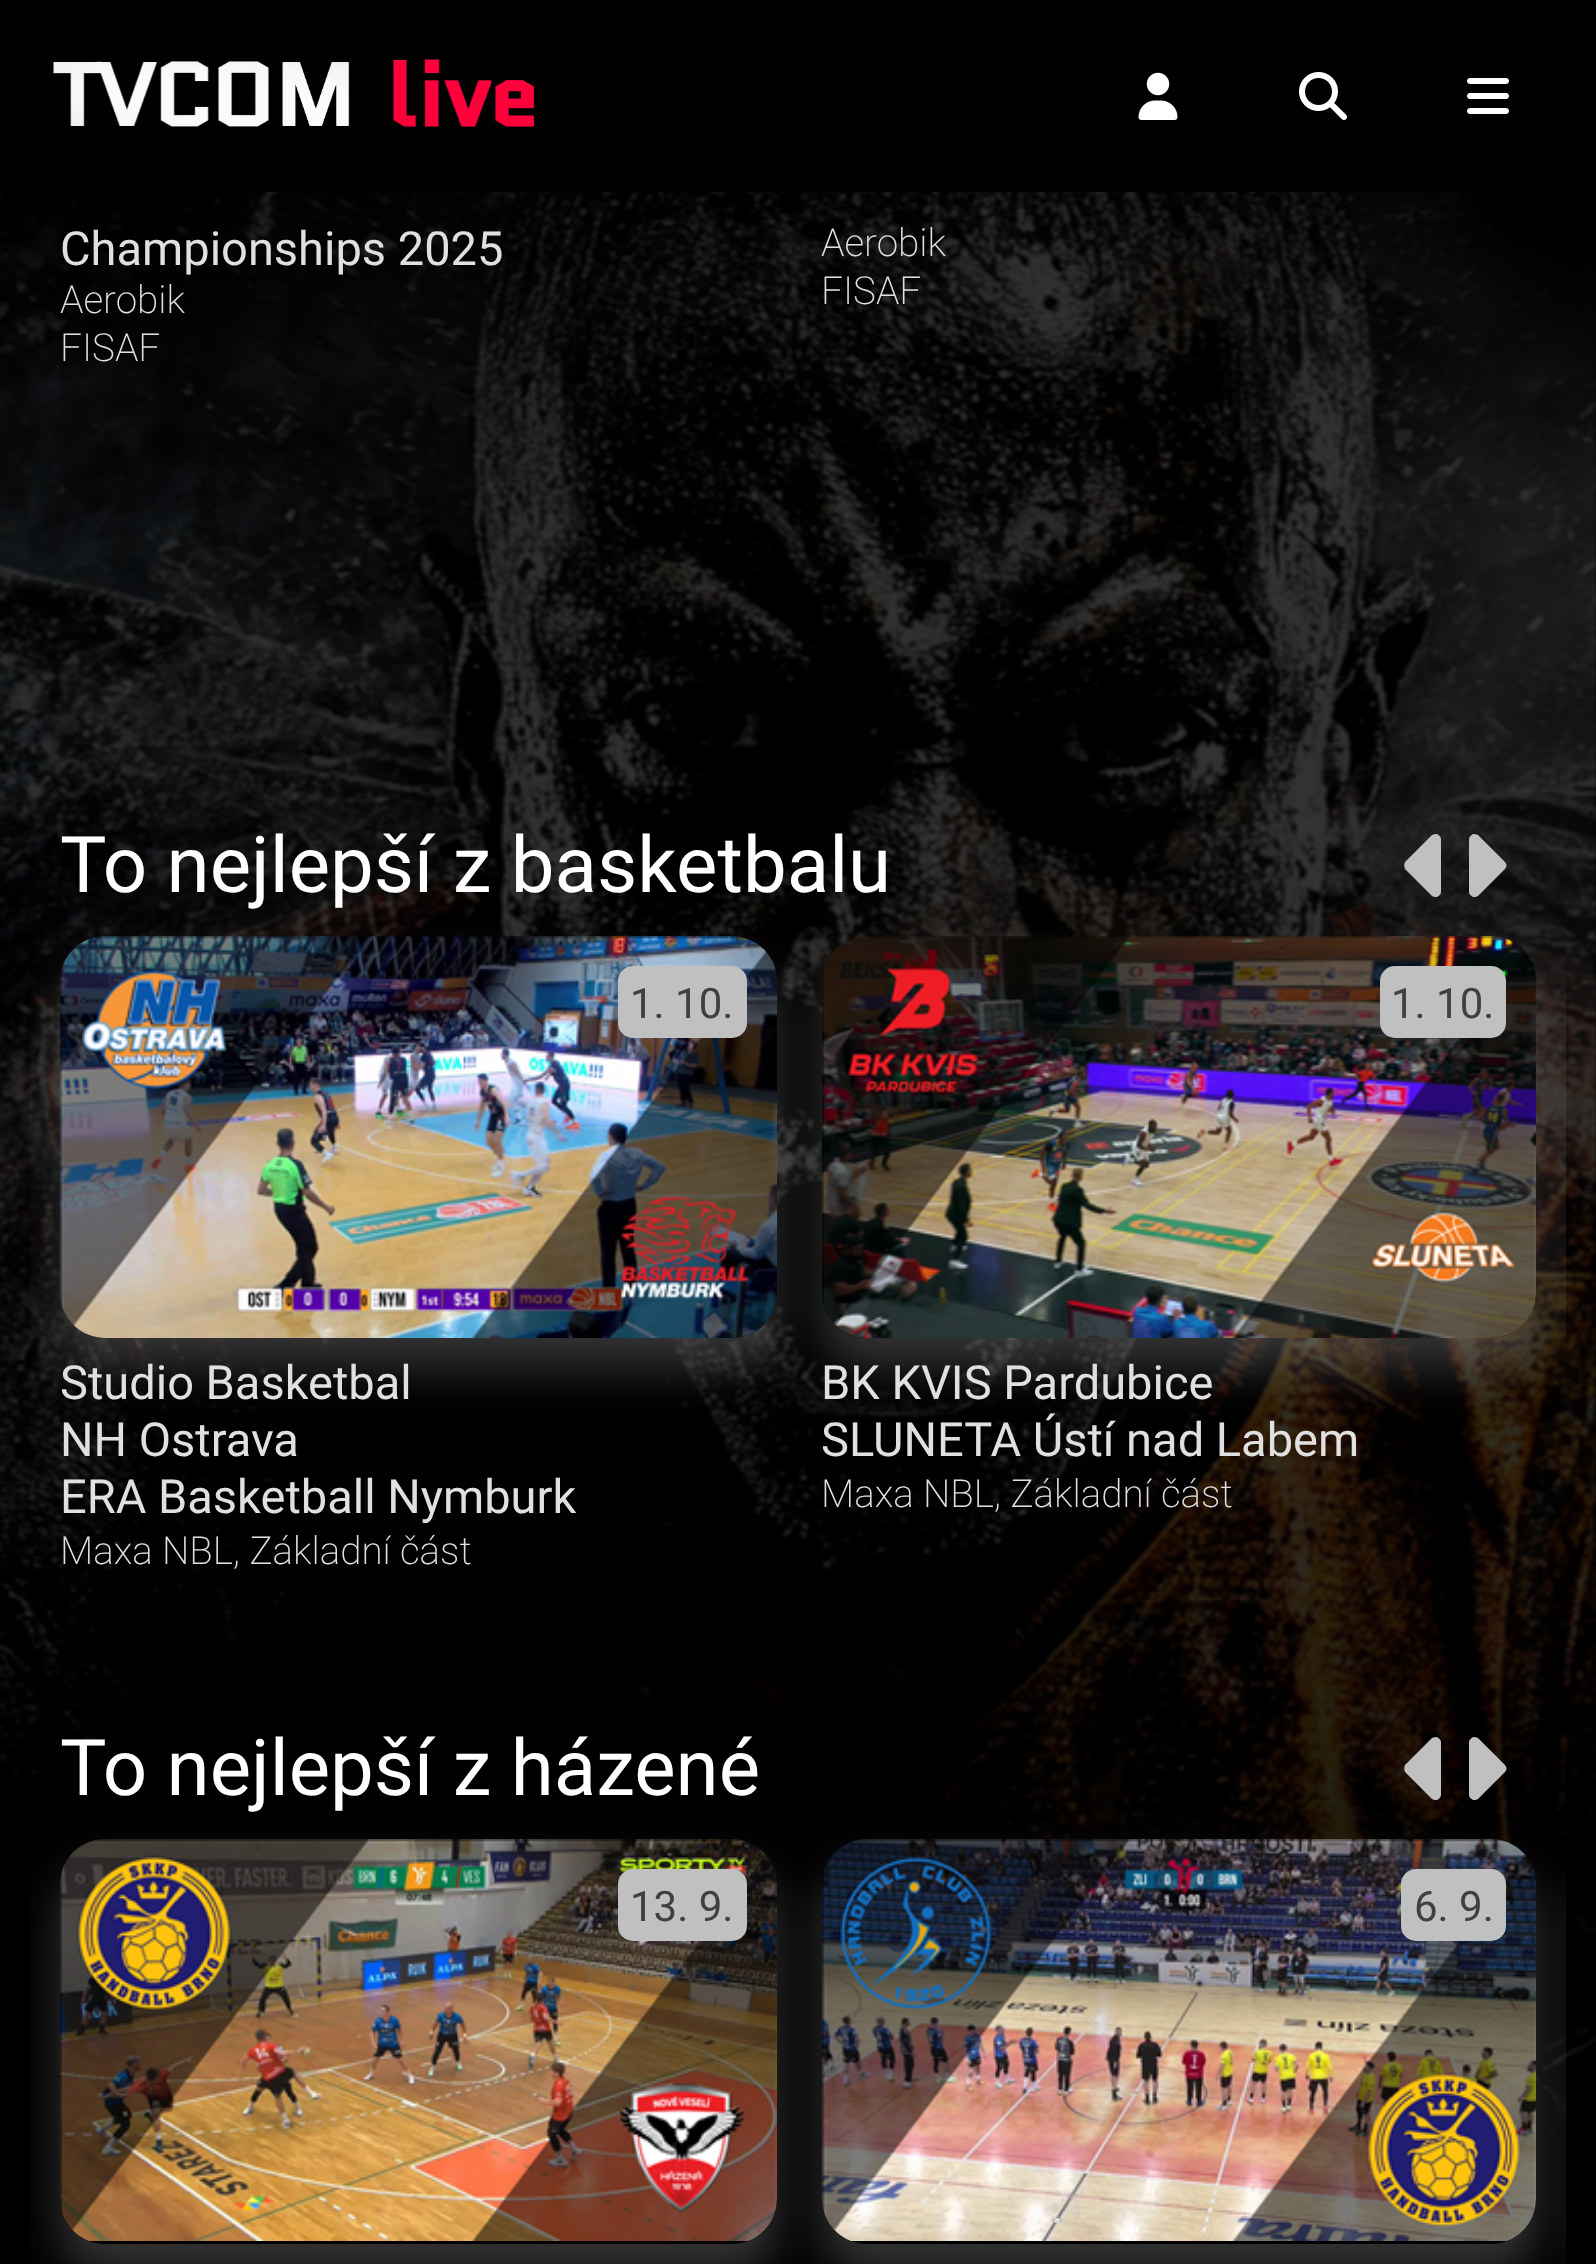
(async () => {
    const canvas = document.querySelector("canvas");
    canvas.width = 1596;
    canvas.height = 2264;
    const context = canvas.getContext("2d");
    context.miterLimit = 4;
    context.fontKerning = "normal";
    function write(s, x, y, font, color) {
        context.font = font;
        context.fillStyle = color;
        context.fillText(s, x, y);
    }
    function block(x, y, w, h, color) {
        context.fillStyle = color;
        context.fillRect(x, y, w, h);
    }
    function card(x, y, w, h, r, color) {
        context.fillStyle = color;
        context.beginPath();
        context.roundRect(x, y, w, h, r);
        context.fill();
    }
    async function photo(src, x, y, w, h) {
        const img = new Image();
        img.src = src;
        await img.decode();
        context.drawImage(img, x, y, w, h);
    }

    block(0, 0, 1596, 2264, "rgb(0, 0, 0)");
    await photo("media/1.png", 0, 192, 1596, 2066);
    await photo("media/2.png", 53, 59, 481, 68);
    await photo("media/3.png", 1138, 72, 40, 48);
    await photo("media/4.png", 1299, 72, 48, 48);
    await photo("media/5.png", 1467, 78, 42, 36);
    write("Championships 2025", 60, 265, "47px Roboto", "rgb(224, 224, 224)");
    write("Aerobik", 60, 313, "200 38.6px Roboto", "rgb(224, 224, 224)");
    write("FISAF", 60, 361, "200 38.6px Roboto", "rgb(224, 224, 224)");
    write("Aerobik", 821, 256, "200 38.6px Roboto", "rgb(224, 224, 224)");
    write("FISAF", 821, 304, "200 38.6px Roboto", "rgb(224, 224, 224)");
    write("To nejlepší z basketbalu", 60, 892, "78px Roboto", "rgb(255, 255, 255)");
    context.fillStyle = "rgb(192, 192, 192)";
    context.beginPath();
    context.moveTo(1441, 839);
    context.bezierCurveTo(1441, 837, 1439, 835, 1437, 834);
    context.bezierCurveTo(1436, 834, 1433, 834, 1432, 835);
    context.lineTo(1405, 862);
    context.bezierCurveTo(1404, 864, 1404, 867, 1405, 869);
    context.lineTo(1432, 896);
    context.bezierCurveTo(1433, 897, 1436, 897, 1437, 897);
    context.bezierCurveTo(1439, 896, 1441, 894, 1441, 892);
    context.closePath();
    context.fill();
    context.beginPath();
    context.moveTo(1469, 839);
    context.bezierCurveTo(1469, 837, 1471, 835, 1473, 834);
    context.bezierCurveTo(1474, 834, 1477, 834, 1478, 835);
    context.lineTo(1505, 862);
    context.bezierCurveTo(1507, 864, 1507, 867, 1505, 869);
    context.lineTo(1478, 896);
    context.bezierCurveTo(1477, 897, 1474, 897, 1473, 897);
    context.bezierCurveTo(1471, 896, 1469, 894, 1469, 892);
    context.closePath();
    context.fill();
    context.save();
    context.beginPath();
    context.rect(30, 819, 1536, 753);
    context.clip();
    context.beginPath();
    context.moveTo(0, 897);
    context.lineTo(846, 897);
    context.lineTo(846, 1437);
    context.lineTo(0, 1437);
    context.closePath();
    context.moveTo(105, 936);
    context.lineTo(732, 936);
    context.bezierCurveTo(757, 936, 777, 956, 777, 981);
    context.lineTo(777, 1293);
    context.bezierCurveTo(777, 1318, 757, 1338, 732, 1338);
    context.lineTo(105, 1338);
    context.bezierCurveTo(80, 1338, 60, 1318, 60, 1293);
    context.lineTo(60, 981);
    context.bezierCurveTo(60, 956, 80, 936, 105, 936);
    context.closePath();
    context.clip("evenodd");
    context.fillStyle = "rgba(255, 255, 255, 0.2)";
    context.filter = "blur(22.5px)";
    context.beginPath();
    context.roundRect(60, 966, 717, 402, 45);
    context.fill();
    context.filter = "none";
    context.restore();
    await photo("media/6.png", 60, 936, 717, 402);
    card(618, 966, 129, 72, 15, "rgb(192, 192, 192)");
    write("1. 10.", 630, 1018, "42px Roboto", "rgb(64, 64, 64)");
    write("Studio Basketbal", 60, 1399, "47px Roboto", "rgb(224, 224, 224)");
    write("NH Ostrava", 60, 1456, "47px Roboto", "rgb(224, 224, 224)");
    write("ERA Basketball Nymburk", 60, 1513, "47px Roboto", "rgb(224, 224, 224)");
    write("Maxa NBL, Základní část", 60, 1564, "200 38.6px Roboto", "rgb(224, 224, 224)");
    context.save();
    context.beginPath();
    context.rect(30, 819, 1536, 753);
    context.clip();
    context.beginPath();
    context.moveTo(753, 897);
    context.lineTo(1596, 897);
    context.lineTo(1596, 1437);
    context.lineTo(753, 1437);
    context.closePath();
    context.moveTo(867, 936);
    context.lineTo(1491, 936);
    context.bezierCurveTo(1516, 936, 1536, 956, 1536, 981);
    context.lineTo(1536, 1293);
    context.bezierCurveTo(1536, 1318, 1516, 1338, 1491, 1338);
    context.lineTo(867, 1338);
    context.bezierCurveTo(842, 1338, 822, 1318, 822, 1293);
    context.lineTo(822, 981);
    context.bezierCurveTo(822, 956, 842, 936, 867, 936);
    context.closePath();
    context.clip("evenodd");
    context.fillStyle = "rgba(255, 255, 255, 0.2)";
    context.filter = "blur(22.5px)";
    context.beginPath();
    context.roundRect(822, 966, 714, 402, 45);
    context.fill();
    context.filter = "none";
    context.restore();
    await photo("media/7.png", 822, 936, 714, 402);
    card(1380, 966, 126, 72, 15, "rgb(192, 192, 192)");
    write("1. 10.", 1391, 1018, "42px Roboto", "rgb(64, 64, 64)");
    write("BK KVIS Pardubice", 821, 1399, "47px Roboto", "rgb(224, 224, 224)");
    write("SLUNETA Ústí nad Labem", 821, 1456, "47px Roboto", "rgb(224, 224, 224)");
    write("Maxa NBL, Základní část", 821, 1507, "200 38.6px Roboto", "rgb(224, 224, 224)");
    context.save();
    context.beginPath();
    context.rect(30, 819, 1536, 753);
    context.clip();
    context.fillStyle = "rgba(255, 255, 255, 0.2)";
    context.filter = "blur(22.5px)";
    context.beginPath();
    context.roundRect(1581, 966, 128, 402, 45);
    context.fill();
    context.filter = "none";
    context.restore();
    write("To nejlepší z házené", 60, 1795, "78px Roboto", "rgb(255, 255, 255)");
    context.fillStyle = "rgb(192, 192, 192)";
    context.beginPath();
    context.moveTo(1441, 1742);
    context.bezierCurveTo(1441, 1740, 1439, 1738, 1437, 1737);
    context.bezierCurveTo(1436, 1737, 1433, 1737, 1432, 1738);
    context.lineTo(1405, 1765);
    context.bezierCurveTo(1404, 1767, 1404, 1770, 1405, 1772);
    context.lineTo(1432, 1799);
    context.bezierCurveTo(1433, 1800, 1436, 1800, 1437, 1800);
    context.bezierCurveTo(1439, 1799, 1441, 1797, 1441, 1795);
    context.closePath();
    context.fill();
    context.beginPath();
    context.moveTo(1469, 1742);
    context.bezierCurveTo(1469, 1740, 1471, 1738, 1473, 1737);
    context.bezierCurveTo(1474, 1737, 1477, 1737, 1478, 1738);
    context.lineTo(1505, 1765);
    context.bezierCurveTo(1507, 1767, 1507, 1770, 1505, 1772);
    context.lineTo(1478, 1799);
    context.bezierCurveTo(1477, 1800, 1474, 1800, 1473, 1800);
    context.bezierCurveTo(1471, 1799, 1469, 1797, 1469, 1795);
    context.closePath();
    context.fill();
    context.save();
    context.beginPath();
    context.rect(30, 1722, 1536, 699);
    context.clip();
    context.beginPath();
    context.moveTo(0, 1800);
    context.lineTo(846, 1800);
    context.lineTo(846, 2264);
    context.lineTo(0, 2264);
    context.closePath();
    context.moveTo(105, 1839);
    context.lineTo(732, 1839);
    context.bezierCurveTo(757, 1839, 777, 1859, 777, 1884);
    context.lineTo(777, 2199);
    context.bezierCurveTo(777, 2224, 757, 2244, 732, 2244);
    context.lineTo(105, 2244);
    context.bezierCurveTo(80, 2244, 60, 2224, 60, 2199);
    context.lineTo(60, 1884);
    context.bezierCurveTo(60, 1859, 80, 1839, 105, 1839);
    context.closePath();
    context.clip("evenodd");
    context.fillStyle = "rgba(255, 255, 255, 0.2)";
    context.filter = "blur(22.5px)";
    context.beginPath();
    context.roundRect(60, 1869, 717, 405, 45);
    context.fill();
    context.filter = "none";
    context.restore();
    await photo("media/8.png", 60, 1839, 717, 402);
    card(618, 1869, 129, 72, 15, "rgb(192, 192, 192)");
    write("13. 9.", 630, 1921, "42px Roboto", "rgb(64, 64, 64)");
    context.save();
    context.beginPath();
    context.rect(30, 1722, 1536, 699);
    context.clip();
    context.beginPath();
    context.moveTo(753, 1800);
    context.lineTo(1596, 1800);
    context.lineTo(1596, 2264);
    context.lineTo(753, 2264);
    context.closePath();
    context.moveTo(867, 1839);
    context.lineTo(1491, 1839);
    context.bezierCurveTo(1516, 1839, 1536, 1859, 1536, 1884);
    context.lineTo(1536, 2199);
    context.bezierCurveTo(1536, 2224, 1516, 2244, 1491, 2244);
    context.lineTo(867, 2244);
    context.bezierCurveTo(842, 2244, 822, 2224, 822, 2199);
    context.lineTo(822, 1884);
    context.bezierCurveTo(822, 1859, 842, 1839, 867, 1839);
    context.closePath();
    context.clip("evenodd");
    context.fillStyle = "rgba(255, 255, 255, 0.2)";
    context.filter = "blur(22.5px)";
    context.beginPath();
    context.roundRect(822, 1869, 714, 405, 45);
    context.fill();
    context.filter = "none";
    context.restore();
    await photo("media/9.png", 822, 1839, 714, 402);
    card(1401, 1869, 105, 72, 15, "rgb(192, 192, 192)");
    write("6. 9.", 1414, 1921, "42px Roboto", "rgb(64, 64, 64)");
    context.save();
    context.beginPath();
    context.rect(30, 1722, 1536, 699);
    context.clip();
    context.fillStyle = "rgba(255, 255, 255, 0.2)";
    context.filter = "blur(22.5px)";
    context.beginPath();
    context.roundRect(1581, 1869, 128, 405, 45);
    context.fill();
    context.filter = "none";
    context.restore();
})();
